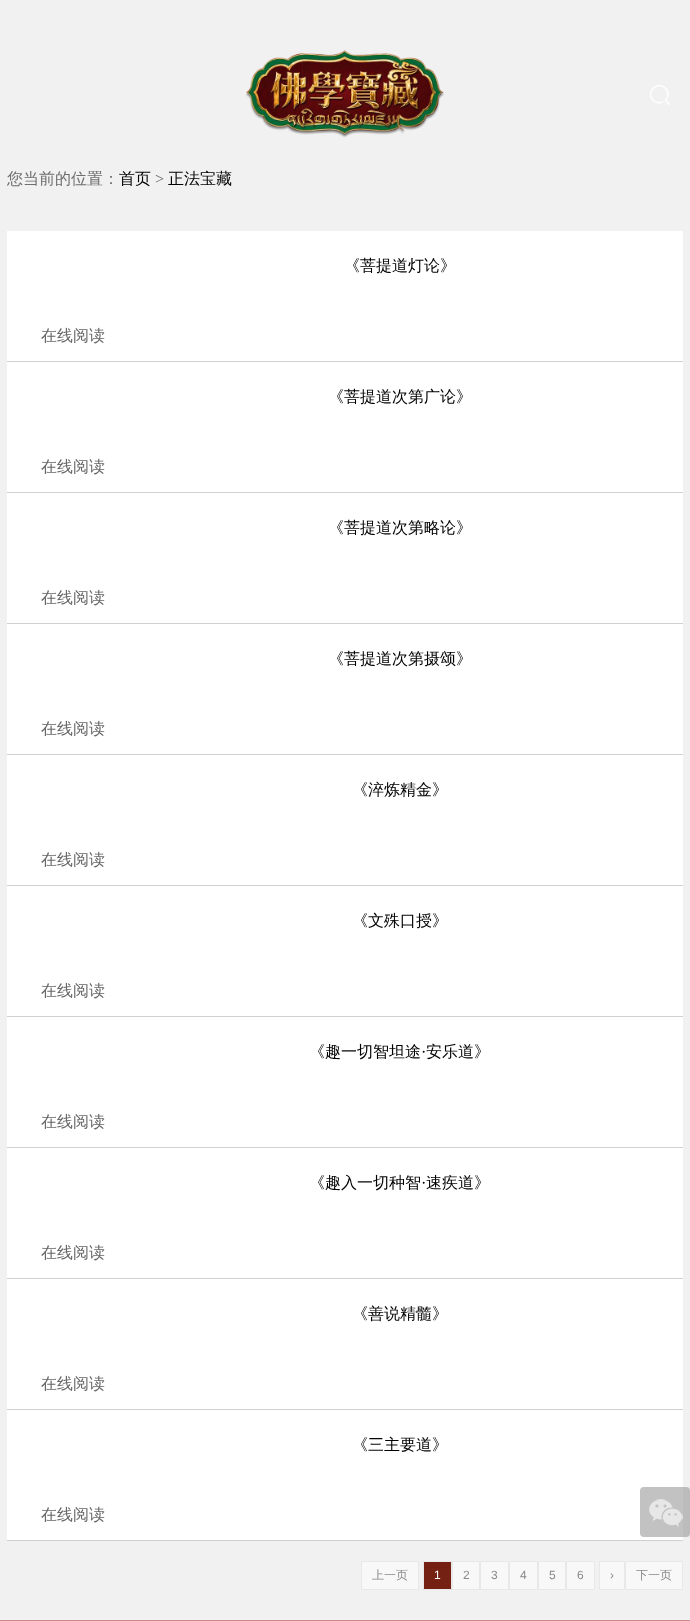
(async () => {
    const canvas = document.querySelector("canvas");
    canvas.width = 690;
    canvas.height = 1621;
    const context = canvas.getContext("2d");
    context.miterLimit = 4;
    context.fontKerning = "normal";
    function write(s, x, y, font, color) {
        context.font = font;
        context.fillStyle = color;
        context.fillText(s, x, y);
    }
    function block(x, y, w, h, color) {
        context.fillStyle = color;
        context.fillRect(x, y, w, h);
    }
    function card(x, y, w, h, r, color) {
        context.fillStyle = color;
        context.beginPath();
        context.roundRect(x, y, w, h, r);
        context.fill();
    }
    async function photo(src, x, y, w, h) {
        const img = new Image();
        img.src = src;
        await img.decode();
        context.drawImage(img, x, y, w, h);
    }

    block(0, 0, 690, 1621, "rgb(241, 241, 241)");
    await photo("media/1.png", 246, 50, 198, 88);
    await photo("media/2.png", 650, 85, 20, 20);
    write("您当前的位置：", 7, 184, "500 16px WenQuanYi Zen Hei", "rgb(110, 110, 110)");
    write("首页", 119, 184, "500 16px WenQuanYi Zen Hei", "rgb(0, 0, 0)");
    write(">", 155, 184, "16px Liberation Serif", "rgb(110, 110, 110)");
    write("正法宝藏", 168, 184, "500 16px WenQuanYi Zen Hei", "rgb(0, 0, 0)");
    block(7, 231, 676, 1309, "rgb(255, 255, 255)");
    block(7, 361, 676, 1, "rgb(208, 208, 208)");
    write("《菩提道灯论》", 344, 271, "500 16px WenQuanYi Zen Hei", "rgb(0, 0, 0)");
    write("在线阅读", 41, 341, "500 16px WenQuanYi Zen Hei", "rgb(102, 102, 102)");
    block(7, 492, 676, 1, "rgb(208, 208, 208)");
    write("《菩提道次第广论》", 328, 402, "500 16px WenQuanYi Zen Hei", "rgb(0, 0, 0)");
    write("在线阅读", 41, 472, "500 16px WenQuanYi Zen Hei", "rgb(102, 102, 102)");
    block(7, 623, 676, 1, "rgb(208, 208, 208)");
    write("《菩提道次第略论》", 328, 533, "500 16px WenQuanYi Zen Hei", "rgb(0, 0, 0)");
    write("在线阅读", 41, 603, "500 16px WenQuanYi Zen Hei", "rgb(102, 102, 102)");
    block(7, 754, 676, 1, "rgb(208, 208, 208)");
    write("《菩提道次第摄颂》", 328, 664, "500 16px WenQuanYi Zen Hei", "rgb(0, 0, 0)");
    write("在线阅读", 41, 734, "500 16px WenQuanYi Zen Hei", "rgb(102, 102, 102)");
    block(7, 885, 676, 1, "rgb(208, 208, 208)");
    write("《淬炼精金》", 352, 795, "500 16px WenQuanYi Zen Hei", "rgb(0, 0, 0)");
    write("在线阅读", 41, 865, "500 16px WenQuanYi Zen Hei", "rgb(102, 102, 102)");
    block(7, 1016, 676, 1, "rgb(208, 208, 208)");
    write("《文殊口授》", 352, 926, "500 16px WenQuanYi Zen Hei", "rgb(0, 0, 0)");
    write("在线阅读", 41, 996, "500 16px WenQuanYi Zen Hei", "rgb(102, 102, 102)");
    block(7, 1147, 676, 1, "rgb(208, 208, 208)");
    write("《趣一切智坦途", 309, 1057, "500 16px WenQuanYi Zen Hei", "rgb(0, 0, 0)");
    write("·", 421, 1057, "16px Liberation Serif", "rgb(0, 0, 0)");
    write("安乐道》", 426, 1057, "500 16px WenQuanYi Zen Hei", "rgb(0, 0, 0)");
    write("在线阅读", 41, 1127, "500 16px WenQuanYi Zen Hei", "rgb(102, 102, 102)");
    block(7, 1278, 676, 1, "rgb(208, 208, 208)");
    write("《趣入一切种智", 309, 1188, "500 16px WenQuanYi Zen Hei", "rgb(0, 0, 0)");
    write("·", 421, 1188, "16px Liberation Serif", "rgb(0, 0, 0)");
    write("速疾道》", 426, 1188, "500 16px WenQuanYi Zen Hei", "rgb(0, 0, 0)");
    write("在线阅读", 41, 1258, "500 16px WenQuanYi Zen Hei", "rgb(102, 102, 102)");
    block(7, 1409, 676, 1, "rgb(208, 208, 208)");
    write("《善说精髓》", 352, 1319, "500 16px WenQuanYi Zen Hei", "rgb(0, 0, 0)");
    write("在线阅读", 41, 1389, "500 16px WenQuanYi Zen Hei", "rgb(102, 102, 102)");
    block(7, 1540, 676, 1, "rgb(208, 208, 208)");
    write("《三主要道》", 352, 1450, "500 16px WenQuanYi Zen Hei", "rgb(0, 0, 0)");
    write("在线阅读", 41, 1520, "500 16px WenQuanYi Zen Hei", "rgb(102, 102, 102)");
    context.fillStyle = "rgb(248, 248, 248)";
    context.beginPath();
    context.rect(361.5, 1561.5, 57, 28);
    context.fill();
    context.strokeStyle = "rgb(232, 232, 232)";
    context.stroke();
    write("上一页", 372, 1579, "500 12px WenQuanYi Zen Hei", "rgb(137, 137, 137)");
    context.fillStyle = "rgb(116, 33, 19)";
    context.beginPath();
    context.rect(423.5, 1561.5, 28, 28);
    context.fill();
    context.stroke();
    write("1", 434, 1579, "12px Liberation Sans", "rgb(255, 255, 255)");
    context.fillStyle = "rgb(248, 248, 248)";
    context.beginPath();
    context.rect(452.5, 1561.5, 27, 28);
    context.fill();
    context.stroke();
    write("2", 463, 1579, "12px Liberation Sans", "rgb(137, 137, 137)");
    context.fillStyle = "rgb(248, 248, 248)";
    context.beginPath();
    context.rect(480.5, 1561.5, 28, 28);
    context.fill();
    context.stroke();
    write("3", 491, 1579, "12px Liberation Sans", "rgb(137, 137, 137)");
    context.fillStyle = "rgb(248, 248, 248)";
    context.beginPath();
    context.rect(509.5, 1561.5, 28, 28);
    context.fill();
    context.stroke();
    write("4", 520, 1579, "12px Liberation Sans", "rgb(137, 137, 137)");
    context.fillStyle = "rgb(248, 248, 248)";
    context.beginPath();
    context.rect(538.5, 1561.5, 27, 28);
    context.fill();
    context.stroke();
    write("5", 549, 1579, "12px Liberation Sans", "rgb(137, 137, 137)");
    context.fillStyle = "rgb(248, 248, 248)";
    context.beginPath();
    context.rect(566.5, 1561.5, 28, 28);
    context.fill();
    context.stroke();
    write("6", 577, 1579, "12px Liberation Sans", "rgb(137, 137, 137)");
    context.fillStyle = "rgb(248, 248, 248)";
    context.beginPath();
    context.rect(599.5, 1561.5, 25, 28);
    context.fill();
    context.stroke();
    write("›", 610, 1579, "12px Liberation Sans", "rgb(137, 137, 137)");
    context.fillStyle = "rgb(248, 248, 248)";
    context.beginPath();
    context.rect(625.5, 1561.5, 57, 28);
    context.fill();
    context.stroke();
    write("下一页", 636, 1579, "500 12px WenQuanYi Zen Hei", "rgb(137, 137, 137)");
    card(640, 1487, 50, 50, 4, "rgba(154, 154, 154, 0.6)");
    await photo("media/3.png", 649, 1499, 34, 28);
    block(0, 1620, 690, 1, "rgb(204, 140, 140)");
})();
